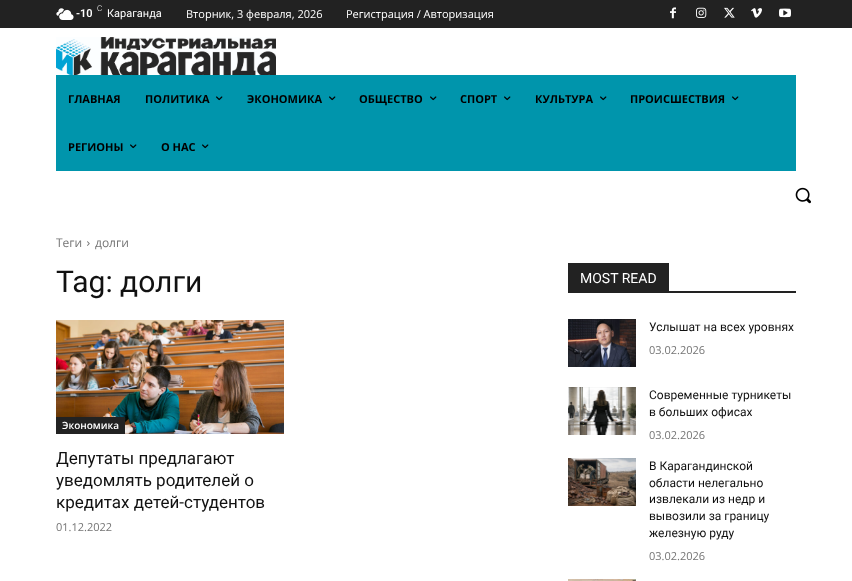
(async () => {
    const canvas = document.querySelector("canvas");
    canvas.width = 852;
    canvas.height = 581;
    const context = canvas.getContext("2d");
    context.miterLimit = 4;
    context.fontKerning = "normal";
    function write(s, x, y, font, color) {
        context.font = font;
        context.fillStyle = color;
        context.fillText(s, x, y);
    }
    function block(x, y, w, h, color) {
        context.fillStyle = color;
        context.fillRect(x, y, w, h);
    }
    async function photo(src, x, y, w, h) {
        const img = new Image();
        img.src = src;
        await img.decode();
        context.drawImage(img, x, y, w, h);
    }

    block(0, 0, 852, 581, "rgb(255, 255, 255)");
    block(0, 0, 852, 28, "rgb(34, 34, 34)");
    await photo("media/1.png", 56, 8, 18, 12);
    write("-10", 76, 17, "600 11px Roboto", "rgb(255, 255, 255)");
    write("C", 97, 11, "300 8px Roboto", "rgb(255, 255, 255)");
    write("Караганда", 107, 17, "11px Roboto", "rgb(255, 255, 255)");
    write("Вторник, 3 февраля, 2026", 186, 18, "11px Open Sans", "rgb(255, 255, 255)");
    write("Регистрация / Авторизация", 346, 18, "11px Open Sans", "rgb(255, 255, 255)");
    await photo("media/2.png", 670, 7, 6, 12);
    await photo("media/3.png", 696, 7, 11, 11);
    await photo("media/4.png", 724, 7, 11, 11);
    await photo("media/5.png", 751, 8, 11, 10);
    await photo("media/6.png", 779, 8, 12, 10);
    await photo("media/7.png", 56, 37, 220, 38);
    block(56, 75, 740, 96, "rgb(0, 149, 172)");
    write("ГЛАВНАЯ", 68, 103, "bold 11px Open Sans", "rgb(0, 0, 0)");
    write("ПОЛИТИКА", 145, 103, "bold 11px Open Sans", "rgb(0, 0, 0)");
    await photo("media/8.png", 216, 96, 7, 5);
    write("ЭКОНОМИКА", 247, 103, "bold 11px Open Sans", "rgb(0, 0, 0)");
    await photo("media/8.png", 329, 96, 7, 5);
    write("ОБЩЕСТВО", 359, 103, "bold 11px Open Sans", "rgb(0, 0, 0)");
    await photo("media/8.png", 430, 96, 7, 5);
    write("СПОРТ", 460, 103, "bold 11px Open Sans", "rgb(0, 0, 0)");
    await photo("media/8.png", 504, 96, 7, 5);
    write("КУЛЬТУРА", 535, 103, "bold 11px Open Sans", "rgb(0, 0, 0)");
    await photo("media/8.png", 600, 96, 7, 5);
    write("ПРОИСШЕСТВИЯ", 630, 103, "bold 11px Open Sans", "rgb(0, 0, 0)");
    await photo("media/8.png", 732, 96, 7, 5);
    write("РЕГИОНЫ", 68, 151, "bold 11px Open Sans", "rgb(0, 0, 0)");
    await photo("media/8.png", 130, 144, 7, 5);
    write("О НАС", 161, 151, "bold 11px Open Sans", "rgb(0, 0, 0)");
    await photo("media/8.png", 202, 144, 7, 5);
    await photo("media/9.png", 795, 187, 16, 17);
    write("Теги", 56, 247, "12px Open Sans", "rgb(116, 116, 116)");
    await photo("media/10.png", 87, 241, 3, 5);
    write("долги", 95, 247, "12px Open Sans", "rgb(116, 116, 116)");
    write("Tag: долги", 56, 292, "30px Roboto", "rgb(17, 17, 17)");
    await photo("media/11.png", 56, 320, 228, 114);
    block(56, 417, 69, 17, "rgb(34, 34, 34)");
    write("Экономика", 62, 429, "600 10px Open Sans", "rgb(255, 255, 255)");
    write("Депутаты предлагают", 56, 464, "17px Roboto", "rgb(17, 17, 17)");
    write("уведомлять родителей о", 56, 486, "17px Roboto", "rgb(17, 17, 17)");
    write("кредитах детей-студентов", 56, 508, "17px Roboto", "rgb(17, 17, 17)");
    write("01.12.2022", 56, 531, "11px Open Sans", "rgb(116, 116, 116)");
    block(568, 291, 228, 2, "rgb(34, 34, 34)");
    block(568, 263, 101, 28, "rgb(34, 34, 34)");
    write("MOST READ", 580, 283, "14px Roboto", "rgb(255, 255, 255)");
    await photo("media/12.png", 568, 319, 68, 48);
    write("Услышат на всех уровнях", 649, 331, "12px Roboto", "rgb(17, 17, 17)");
    write("03.02.2026", 649, 354, "11px Open Sans", "rgb(116, 116, 116)");
    await photo("media/13.png", 568, 387, 68, 48);
    write("Современные турникеты", 649, 399, "12px Roboto", "rgb(17, 17, 17)");
    write("в больших офисах", 649, 416, "12px Roboto", "rgb(17, 17, 17)");
    write("03.02.2026", 649, 439, "11px Open Sans", "rgb(116, 116, 116)");
    await photo("media/14.png", 568, 458, 68, 48);
    write("В Карагандинской", 649, 470, "12px Roboto", "rgb(17, 17, 17)");
    write("области нелегально", 649, 487, "12px Roboto", "rgb(17, 17, 17)");
    write("извлекали из недр и", 649, 503, "12px Roboto", "rgb(17, 17, 17)");
    write("вывозили за границу", 649, 520, "12px Roboto", "rgb(17, 17, 17)");
    write("железную руду", 649, 537, "12px Roboto", "rgb(17, 17, 17)");
    write("03.02.2026", 649, 560, "11px Open Sans", "rgb(116, 116, 116)");
    await photo("media/15.png", 568, 579, 68, 2);
})();
